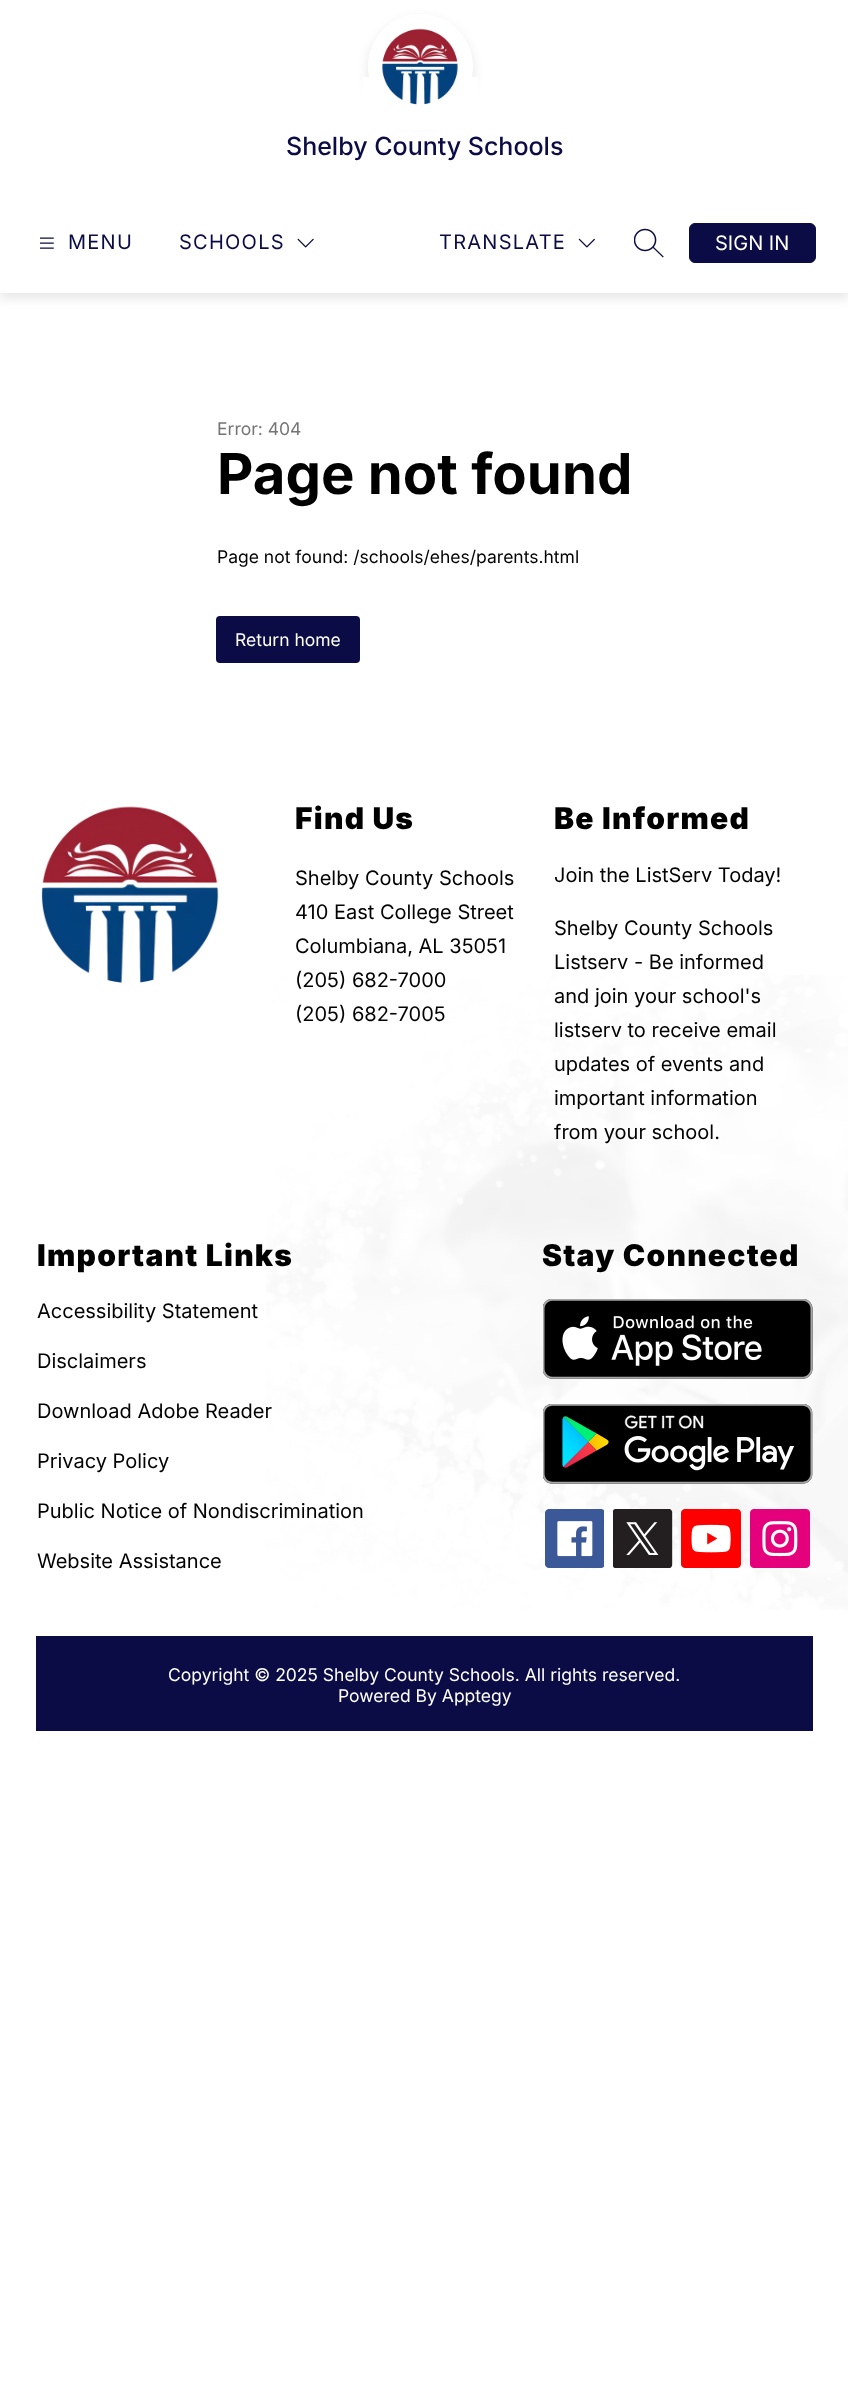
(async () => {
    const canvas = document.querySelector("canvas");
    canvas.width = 848;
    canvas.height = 2405;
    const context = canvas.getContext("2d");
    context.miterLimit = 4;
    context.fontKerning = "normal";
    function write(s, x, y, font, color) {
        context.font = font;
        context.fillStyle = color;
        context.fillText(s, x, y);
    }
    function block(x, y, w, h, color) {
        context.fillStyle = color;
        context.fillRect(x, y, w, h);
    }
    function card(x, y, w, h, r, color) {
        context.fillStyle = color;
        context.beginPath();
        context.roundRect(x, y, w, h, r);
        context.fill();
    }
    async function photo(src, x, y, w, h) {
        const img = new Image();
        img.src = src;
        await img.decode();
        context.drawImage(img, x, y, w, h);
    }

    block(0, 0, 848, 2405, "rgb(255, 255, 255)");
    context.fillStyle = "rgba(0, 0, 0, 0.1)";
    context.filter = "blur(6px)";
    context.beginPath();
    context.rect(0, 5, 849, 293);
    context.fill();
    context.filter = "none";
    block(0, 0, 848, 293, "rgb(255, 255, 255)");
    context.save();
    context.beginPath();
    context.moveTo(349, 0);
    context.lineTo(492, 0);
    context.lineTo(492, 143);
    context.lineTo(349, 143);
    context.closePath();
    context.moveTo(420.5, 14);
    context.bezierCurveTo(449.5, 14, 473, 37.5, 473, 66.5);
    context.bezierCurveTo(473, 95.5, 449.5, 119, 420.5, 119);
    context.bezierCurveTo(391.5, 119, 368, 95.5, 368, 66.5);
    context.bezierCurveTo(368, 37.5, 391.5, 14, 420.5, 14);
    context.closePath();
    context.clip("evenodd");
    context.fillStyle = "rgba(0, 0, 0, 0.1)";
    context.filter = "blur(6px)";
    context.beginPath();
    context.roundRect(368, 19, 105, 105, 52.5);
    context.fill();
    context.filter = "none";
    context.restore();
    block(363, 77, 115, 53, "rgb(255, 255, 255)");
    await photo("media/1.png", 382, 28, 76, 77);
    write("Shelby County Schools", 286, 155, "500 25px Inter", "rgb(11, 11, 69)");
    await photo("media/2.png", 40, 237, 14, 12);
    context.letterSpacing = "1.25px";
    write("MENU", 68, 249, "20px Inter", "rgb(11, 11, 69)");
    write("SCHOOLS", 179, 249, "20px Inter", "rgb(11, 11, 69)");
    await photo("media/3.png", 297, 238, 17, 10);
    write("TRANSLATE", 439, 249, "20px Inter", "rgb(11, 11, 69)");
    await photo("media/4.png", 578, 238, 17, 10);
    await photo("media/5.png", 634, 228, 30, 30);
    context.beginPath();
    context.roundRect(689.5, 223.5, 126, 39, 5.5);
    context.fill();
    context.strokeStyle = "rgb(11, 11, 69)";
    context.stroke();
    context.letterSpacing = "0px";
    write("SIGN IN", 715, 250, "20px Inter", "rgb(255, 255, 255)");
    write("Error: 404", 217, 435, "17.5px Inter", "rgb(116, 116, 116)");
    write("Page not found", 217, 494, "bold 56.25px Inter", "rgb(0, 0, 0)");
    write("Page not found: /schools/ehes/parents.html", 217, 563, "17.5px Inter", "rgb(0, 0, 0)");
    card(216, 616, 144, 47, 4, "rgb(11, 11, 69)");
    write("Return home", 235, 646, "17.5px Inter", "rgb(255, 255, 255)");
    await photo("media/6.png", 266, 975, 582, 635);
    await photo("media/7.png", 41, 806, 178, 177);
    context.letterSpacing = "1.25px";
    write("Find Us", 295, 829, "900 30px Inter", "rgb(0, 0, 0)");
    context.letterSpacing = "0px";
    write("Shelby County Schools", 295, 885, "20px Inter", "rgb(0, 0, 0)");
    write("410 East College Street", 295, 919, "20px Inter", "rgb(0, 0, 0)");
    write("Columbiana, AL 35051", 295, 953, "20px Inter", "rgb(0, 0, 0)");
    write("(205) 682-7000", 295, 987, "20px Inter", "rgb(0, 0, 0)");
    write("(205) 682-7005", 295, 1021, "20px Inter", "rgb(0, 0, 0)");
    context.letterSpacing = "1.25px";
    write("Be Informed", 554, 829, "900 30px Inter", "rgb(0, 0, 0)");
    context.letterSpacing = "0px";
    write("Join the ListServ Today!", 554, 882, "20px Inter", "rgb(0, 0, 0)");
    write("Shelby County Schools", 554, 935, "20px Inter", "rgb(0, 0, 0)");
    write("Listserv - Be informed", 554, 969, "20px Inter", "rgb(0, 0, 0)");
    write("and join your school's", 554, 1003, "20px Inter", "rgb(0, 0, 0)");
    write("listserv to receive email", 554, 1037, "20px Inter", "rgb(0, 0, 0)");
    write("updates of events and", 554, 1071, "20px Inter", "rgb(0, 0, 0)");
    write("important information", 554, 1105, "20px Inter", "rgb(0, 0, 0)");
    write("from your school.", 554, 1139, "20px Inter", "rgb(0, 0, 0)");
    context.letterSpacing = "1.25px";
    write("Important Links", 37, 1266, "900 30px Inter", "rgb(0, 0, 0)");
    context.letterSpacing = "0px";
    write("Accessibility Statement", 37, 1318, "20px Inter", "rgb(0, 0, 0)");
    write("Disclaimers", 37, 1368, "20px Inter", "rgb(0, 0, 0)");
    write("Download Adobe Reader", 37, 1418, "20px Inter", "rgb(0, 0, 0)");
    write("Privacy Policy", 37, 1468, "20px Inter", "rgb(0, 0, 0)");
    write("Public Notice of Nondiscrimination", 37, 1518, "20px Inter", "rgb(0, 0, 0)");
    write("Website Assistance", 37, 1568, "20px Inter", "rgb(0, 0, 0)");
    context.letterSpacing = "1.25px";
    write("Stay Connected", 542, 1266, "900 30px Inter", "rgb(0, 0, 0)");
    await photo("media/8.png", 543, 1299, 270, 80);
    await photo("media/9.png", 543, 1404, 270, 80);
    await photo("media/10.png", 545, 1509, 59, 59);
    await photo("media/11.png", 613, 1509, 60, 59);
    await photo("media/12.png", 681, 1509, 60, 59);
    await photo("media/13.png", 750, 1509, 60, 59);
    block(36, 1636, 777, 95, "rgb(11, 11, 69)");
    context.letterSpacing = "0px";
    write("Copyright © 2025 Shelby County Schools. All rights reserved.", 168, 1681, "17.5px Inter", "rgb(255, 255, 255)");
    write("Powered By Apptegy", 338, 1702, "17.5px Inter", "rgb(255, 255, 255)");
})();
